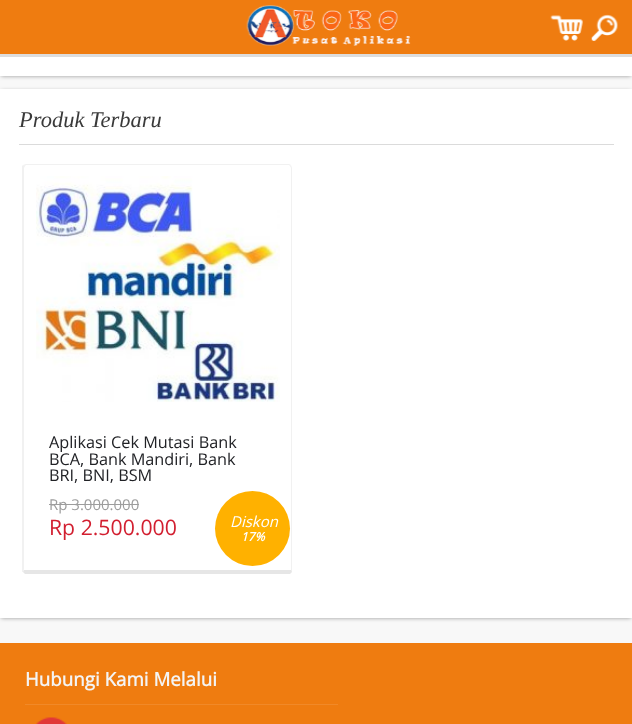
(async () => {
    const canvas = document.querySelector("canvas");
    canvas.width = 632;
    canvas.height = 724;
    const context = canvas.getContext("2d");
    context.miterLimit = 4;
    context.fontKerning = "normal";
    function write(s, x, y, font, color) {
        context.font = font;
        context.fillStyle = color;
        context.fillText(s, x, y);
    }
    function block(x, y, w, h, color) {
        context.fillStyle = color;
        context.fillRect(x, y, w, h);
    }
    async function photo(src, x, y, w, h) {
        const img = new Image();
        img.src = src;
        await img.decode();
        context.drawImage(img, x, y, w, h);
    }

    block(0, 0, 632, 724, "rgb(248, 248, 248)");
    context.fillStyle = "rgba(0, 0, 0, 0.4)";
    context.filter = "blur(2px)";
    context.beginPath();
    context.rect(1, 31, 630, 45);
    context.fill();
    context.filter = "none";
    block(0, 0, 632, 54, "rgb(239, 124, 16)");
    block(0, 54, 632, 3, "rgb(221, 221, 221)");
    await photo("media/1.png", 246, 5, 165, 41);
    await photo("media/2.png", 550, 15, 33, 26);
    await photo("media/3.png", 591, 14, 27, 27);
    block(0, 57, 632, 19, "rgb(255, 255, 255)");
    context.fillStyle = "rgba(0, 0, 0, 0.4)";
    context.filter = "blur(2px)";
    context.beginPath();
    context.rect(1, 91, 630, 527);
    context.fill();
    context.filter = "none";
    block(0, 89, 632, 529, "rgb(255, 255, 255)");
    block(19, 144, 595, 1, "rgb(219, 219, 219)");
    write("Produk Terbaru", 19, 127, "italic 22.5px Liberation Serif", "rgb(58, 58, 58)");
    context.fillStyle = "rgb(241, 241, 241)";
    context.beginPath();
    context.moveTo(26, 164);
    context.lineTo(23, 165);
    context.lineTo(25, 166);
    context.lineTo(26, 165);
    context.lineTo(289, 165);
    context.lineTo(290, 166);
    context.lineTo(291, 165);
    context.lineTo(289, 164);
    context.closePath();
    context.fill();
    context.beginPath();
    context.moveTo(292, 572);
    context.lineTo(292, 168);
    context.lineTo(291, 165);
    context.lineTo(290, 166);
    context.lineTo(291, 168);
    context.lineTo(291, 569);
    context.closePath();
    context.fill();
    context.fillStyle = "rgb(230, 230, 230)";
    context.beginPath();
    context.moveTo(25, 574);
    context.lineTo(23, 572);
    context.lineTo(24, 569);
    context.lineTo(24, 570);
    context.lineTo(291, 570);
    context.lineTo(291, 569);
    context.lineTo(292, 572);
    context.lineTo(290, 574);
    context.closePath();
    context.fill();
    context.fillStyle = "rgb(241, 241, 241)";
    context.beginPath();
    context.moveTo(22, 166);
    context.lineTo(23, 165);
    context.lineTo(25, 166);
    context.lineTo(24, 168);
    context.lineTo(24, 569);
    context.lineTo(23, 572);
    context.lineTo(22, 572);
    context.closePath();
    context.fill();
    await photo("media/4.png", 36, 176, 244, 226);
    write("Aplikasi Cek Mutasi Bank", 49, 448, "16.25px Open Sans", "rgb(33, 34, 38)");
    write("BCA, Bank Mandiri, Bank", 49, 465, "16.25px Open Sans", "rgb(33, 34, 38)");
    write("BRI, BNI, BSM", 49, 481, "16.25px Open Sans", "rgb(33, 34, 38)");
    write("Rp 3.000.000", 49, 510, "15px Open Sans", "rgb(157, 157, 157)");
    block(49, 504, 90, 1, "rgb(157, 157, 157)");
    write("Rp 2.500.000", 49, 535, "21.25px Open Sans", "rgb(210, 31, 48)");
    context.fillStyle = "rgb(255, 177, 0)";
    context.beginPath();
    context.arc(252.5, 528.5, 37.5, 0, Math.PI * 2);
    context.fill();
    write("Diskon", 230, 527, "italic 15px Open Sans", "rgb(255, 255, 255)");
    write("17%", 241, 541, "italic bold 12px Open Sans", "rgb(255, 255, 255)");
    block(0, 643, 632, 81, "rgb(239, 124, 16)");
    block(25, 704, 313, 1, "rgb(241, 137, 40)");
    write("Hubungi Kami Melalui", 25, 686, "bold 18.75px Open Sans", "rgb(244, 244, 244)");
    await photo("media/5.png", 36, 717, 31, 7);
})();
